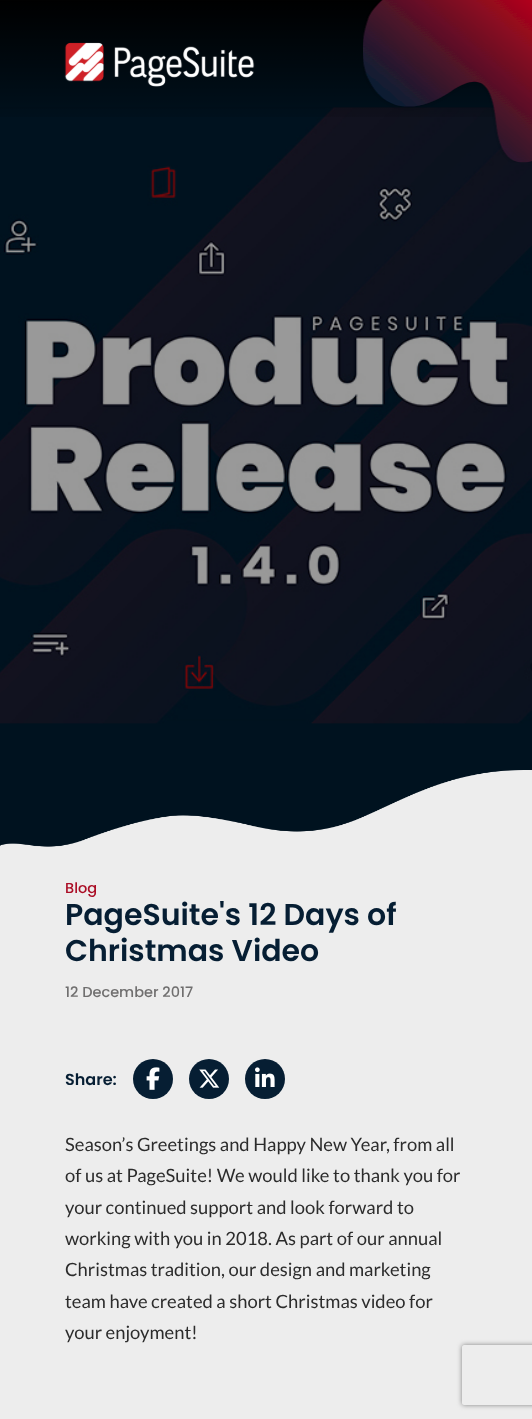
(async () => {
    const canvas = document.querySelector("canvas");
    canvas.width = 532;
    canvas.height = 1419;
    const context = canvas.getContext("2d");
    context.miterLimit = 4;
    context.fontKerning = "normal";
    function write(s, x, y, font, color) {
        context.font = font;
        context.fillStyle = color;
        context.fillText(s, x, y);
    }
    function block(x, y, w, h, color) {
        context.fillStyle = color;
        context.fillRect(x, y, w, h);
    }
    async function photo(src, x, y, w, h) {
        const img = new Image();
        img.src = src;
        await img.decode();
        context.drawImage(img, x, y, w, h);
    }
    let gradient;

    block(0, 0, 532, 1419, "rgb(237, 237, 237)");
    block(0, 1, 532, 846, "rgb(0, 18, 31)");
    await photo("media/3.png", 0, 107, 532, 617);
    gradient = context.createLinearGradient(266, 128, 266, 0);
    gradient.addColorStop(0, "rgba(0, 0, 0, 0)");
    gradient.addColorStop(0.5, "rgba(0, 0, 0, 0.5)");
    gradient.addColorStop(1, "rgb(0, 0, 0)");
    context.fillStyle = gradient;
    context.fillRect(0, 0, 497, 117);
    await photo("media/1.png", 64, 42, 191, 45);
    await photo("media/2.png", 363, 0, 169, 163);
    await photo("media/4.png", 0, 770, 532, 78);
    write("Blog", 65, 893, "500 14.5px Poppins", "rgb(171, 14, 38)");
    write("PageSuite's 12 Days of", 65, 925, "600 30px Poppins", "rgb(6, 30, 51)");
    write("Christmas Video", 65, 961, "600 30px Poppins", "rgb(6, 30, 51)");
    write("12 December 2017", 65, 997, "500 14.5px Poppins", "rgb(112, 111, 111)");
    write("Share:", 65, 1085, "600 16px Poppins", "rgb(6, 30, 51)");
    context.beginPath();
    context.arc(153, 1079, 20, 0, Math.PI * 2);
    context.fill();
    await photo("media/5.png", 146, 1067, 14, 23);
    context.beginPath();
    context.arc(209, 1079, 20, 0, Math.PI * 2);
    context.fill();
    await photo("media/6.png", 199, 1069, 21, 19);
    context.beginPath();
    context.arc(265, 1079, 20, 0, Math.PI * 2);
    context.fill();
    await photo("media/7.png", 255, 1067, 20, 20);
    write("Season’s Greetings and Happy New Year, from all", 65, 1151, "18.4px Lato", "rgb(44, 44, 44)");
    write("of us at PageSuite! We would like to thank you for", 65, 1182, "18.4px Lato", "rgb(44, 44, 44)");
    write("your continued support and look forward to", 65, 1214, "18.4px Lato", "rgb(44, 44, 44)");
    write("working with you in 2018. As part of our annual", 65, 1245, "18.4px Lato", "rgb(44, 44, 44)");
    write("Christmas tradition, our design and marketing", 65, 1276, "18.4px Lato", "rgb(44, 44, 44)");
    write("team have created a short Christmas video for", 65, 1308, "18.4px Lato", "rgb(44, 44, 44)");
    write("your enjoyment!", 65, 1339, "18.4px Lato", "rgb(44, 44, 44)");
    context.save();
    context.beginPath();
    context.moveTo(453, 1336);
    context.lineTo(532, 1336);
    context.lineTo(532, 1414);
    context.lineTo(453, 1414);
    context.closePath();
    context.moveTo(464, 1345);
    context.lineTo(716, 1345);
    context.bezierCurveTo(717, 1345, 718, 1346, 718, 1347);
    context.lineTo(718, 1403);
    context.bezierCurveTo(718, 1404, 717, 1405, 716, 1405);
    context.lineTo(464, 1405);
    context.bezierCurveTo(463, 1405, 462, 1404, 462, 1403);
    context.lineTo(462, 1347);
    context.bezierCurveTo(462, 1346, 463, 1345, 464, 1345);
    context.closePath();
    context.clip("evenodd");
    context.fillStyle = "rgb(128, 128, 128)";
    context.filter = "blur(2.5px)";
    context.beginPath();
    context.roundRect(462, 1345, 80, 60, 2);
    context.fill();
    context.filter = "none";
    context.restore();
})();
